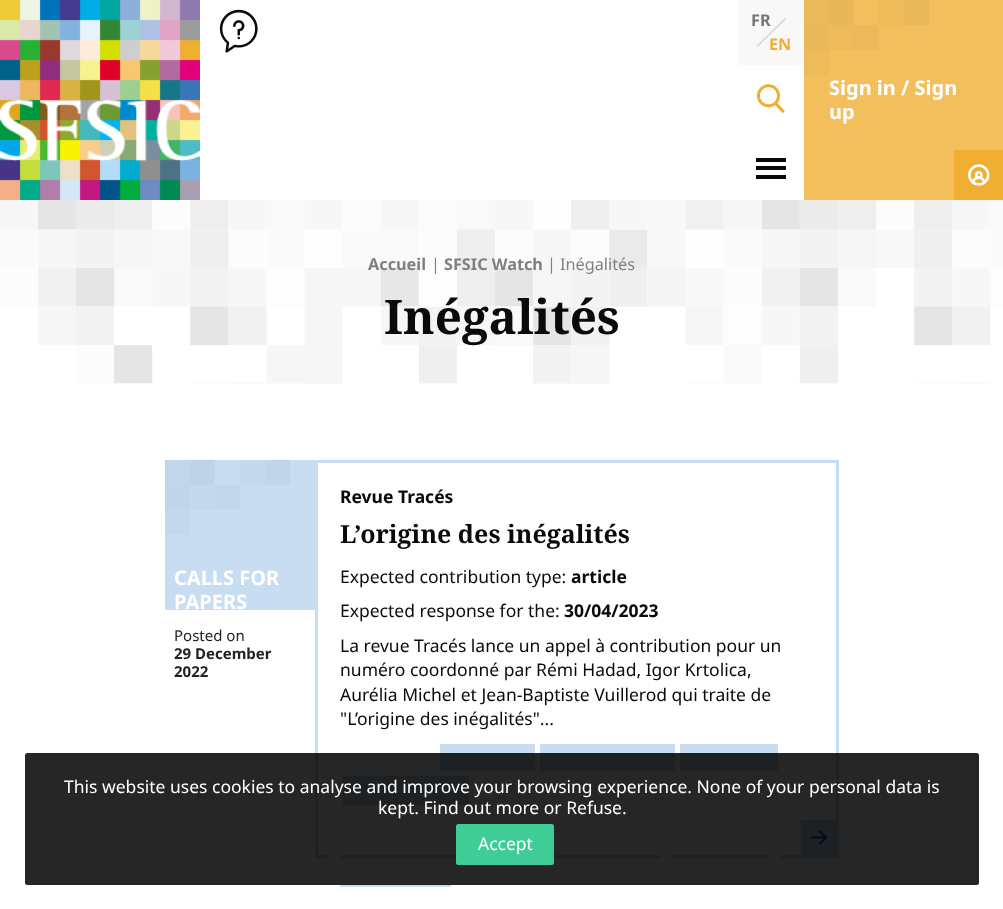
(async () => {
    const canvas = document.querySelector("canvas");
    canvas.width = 1003;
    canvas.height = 909;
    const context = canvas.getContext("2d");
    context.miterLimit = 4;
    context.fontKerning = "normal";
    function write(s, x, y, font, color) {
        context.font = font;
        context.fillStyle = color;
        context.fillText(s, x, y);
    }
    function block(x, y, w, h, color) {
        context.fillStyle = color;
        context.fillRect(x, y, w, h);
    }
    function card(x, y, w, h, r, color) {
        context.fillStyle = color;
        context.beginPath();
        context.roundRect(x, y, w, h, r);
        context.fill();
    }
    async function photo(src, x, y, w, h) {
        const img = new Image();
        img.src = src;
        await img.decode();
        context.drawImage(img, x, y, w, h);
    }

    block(0, 0, 1003, 909, "rgb(255, 255, 255)");
    await photo("media/1.png", 0, 0, 200, 200);
    await photo("media/2.png", 219, 9, 39, 44);
    block(756, 158, 30, 4, "rgb(10, 10, 10)");
    block(756, 166, 30, 4, "rgb(10, 10, 10)");
    block(756, 175, 30, 4, "rgb(10, 10, 10)");
    block(739, 0, 65, 65, "rgb(248, 248, 248)");
    write("FR", 751, 26, "bold 16.25px Noto Sans", "rgb(117, 117, 117)");
    context.fillStyle = "rgb(211, 211, 211)";
    context.beginPath();
    context.moveTo(785, 18);
    context.lineTo(786, 19);
    context.lineTo(757.5, 47);
    context.lineTo(756.5, 46);
    context.closePath();
    context.fill();
    write("EN", 769, 50, "bold 16.25px Noto Sans", "rgb(239, 175, 51)");
    await photo("media/3.png", 757, 84, 28, 29);
    block(804, 0, 199, 200, "rgb(242, 191, 92)");
    block(804, 0, 25, 25, "rgb(235, 185, 89)");
    block(829, 0, 25, 25, "rgb(231, 183, 88)");
    block(879, 0, 25, 25, "rgb(237, 187, 90)");
    block(904, 0, 25, 25, "rgb(233, 184, 89)");
    block(804, 50, 25, 25, "rgb(237, 187, 90)");
    block(854, 25, 25, 25, "rgb(235, 185, 89)");
    block(829, 25, 25, 25, "rgb(237, 187, 90)");
    block(804, 25, 25, 25, "rgb(233, 184, 89)");
    write("Sign in / Sign", 829, 95, "bold 20px Noto Sans", "rgb(255, 255, 255)");
    write("up", 829, 119, "bold 20px Noto Sans", "rgb(255, 255, 255)");
    block(954, 150, 49, 50, "rgb(239, 175, 51)");
    await photo("media/4.png", 968, 164, 22, 22);
    await photo("media/5.png", 0, 200, 1003, 184);
    write("Accueil", 368, 270, "bold 16.25px Noto Sans", "rgb(128, 128, 128)");
    write("|", 431, 270, "16.25px Noto Sans", "rgb(128, 128, 128)");
    write("SFSIC Watch", 444, 270, "bold 16.25px Noto Sans", "rgb(128, 128, 128)");
    write("|", 547, 270, "16.25px Noto Sans", "rgb(128, 128, 128)");
    write("Inégalités", 560, 270, "16.25px Noto Sans", "rgb(128, 128, 128)");
    write("Inégalités", 384, 334, "bold 47.5px Noto Serif", "rgb(10, 10, 10)");
    block(165, 460, 150, 150, "rgb(200, 221, 241)");
    block(165, 460, 25, 25, "rgb(194, 214, 234)");
    block(190, 460, 25, 25, "rgb(191, 211, 230)");
    block(240, 460, 25, 25, "rgb(196, 217, 236)");
    block(265, 460, 25, 25, "rgb(193, 213, 232)");
    block(165, 510, 25, 25, "rgb(196, 216, 236)");
    block(215, 485, 25, 25, "rgb(194, 214, 234)");
    block(190, 485, 25, 25, "rgb(196, 217, 236)");
    block(165, 485, 25, 25, "rgb(193, 213, 232)");
    write("CALLS FOR", 174, 585, "bold 20px Noto Sans", "rgb(255, 255, 255)");
    write("PAPERS", 174, 609, "bold 20px Noto Sans", "rgb(255, 255, 255)");
    write("Posted on", 174, 641, "15px Noto Sans", "rgb(35, 35, 35)");
    write("29 December", 174, 659, "bold 15px Noto Sans", "rgb(35, 35, 35)");
    write("2022", 174, 677, "bold 15px Noto Sans", "rgb(35, 35, 35)");
    block(315, 460, 524, 3, "rgb(200, 221, 241)");
    block(836, 460, 3, 395, "rgb(200, 221, 241)");
    block(315, 460, 3, 395, "rgb(200, 221, 241)");
    write("Revue Tracés", 340, 503, "bold 17.5px Noto Sans", "rgb(10, 10, 10)");
    write("L’origine des inégalités", 340, 543, "bold 25px Noto Serif", "rgb(10, 10, 10)");
    write("Expected contribution type:", 340, 583, "17.5px Noto Sans", "rgb(10, 10, 10)");
    write("article", 571, 583, "bold 17.5px Noto Sans", "rgb(10, 10, 10)");
    write("Expected response for the:", 340, 617, "17.5px Noto Sans", "rgb(10, 10, 10)");
    write("30/04/2023", 564, 617, "bold 17.5px Noto Sans", "rgb(10, 10, 10)");
    write("La revue Tracés lance un appel à contribution pour un", 340, 652, "17.5px Noto Sans", "rgb(10, 10, 10)");
    write("numéro coordonné par Rémi Hadad, Igor Krtolica,", 340, 676, "17.5px Noto Sans", "rgb(10, 10, 10)");
    write("Aurélia Michel et Jean-Baptiste Vuillerod qui traite de", 340, 701, "17.5px Noto Sans", "rgb(10, 10, 10)");
    write("\"L’origine des inégalités\"...", 340, 725, "17.5px Noto Sans", "rgb(10, 10, 10)");
    block(440, 744, 95, 27, "rgb(200, 221, 241)");
    block(540, 744, 135, 27, "rgb(200, 221, 241)");
    block(680, 744, 98, 27, "rgb(200, 221, 241)");
    block(343, 776, 126, 29, "rgb(200, 221, 241)");
    block(801, 820, 35, 35, "rgb(200, 221, 241)");
    await photo("media/6.png", 810, 830, 18, 15);
    block(315, 855, 15, 3, "rgb(200, 221, 241)");
    block(340, 855, 321, 3, "rgb(200, 221, 241)");
    block(670, 855, 98, 3, "rgb(200, 221, 241)");
    block(340, 884, 111, 3, "rgb(200, 221, 241)");
    block(781, 855, 58, 3, "rgb(200, 221, 241)");
    card(25, 753, 954, 132, 2.5, "rgba(0, 0, 0, 0.85)");
    write("This website uses cookies to analyse and improve your browsing experience. None of your personal data is", 64, 793, "17.5px Noto Sans", "rgb(255, 255, 255)");
    write("kept. Find out more or Refuse.", 378, 814, "17.5px Noto Sans", "rgb(255, 255, 255)");
    card(456, 824, 98, 41, 2.5, "rgb(63, 204, 151)");
    write("Accept", 478, 850, "17.5px Noto Sans", "rgb(255, 255, 255)");
})();
